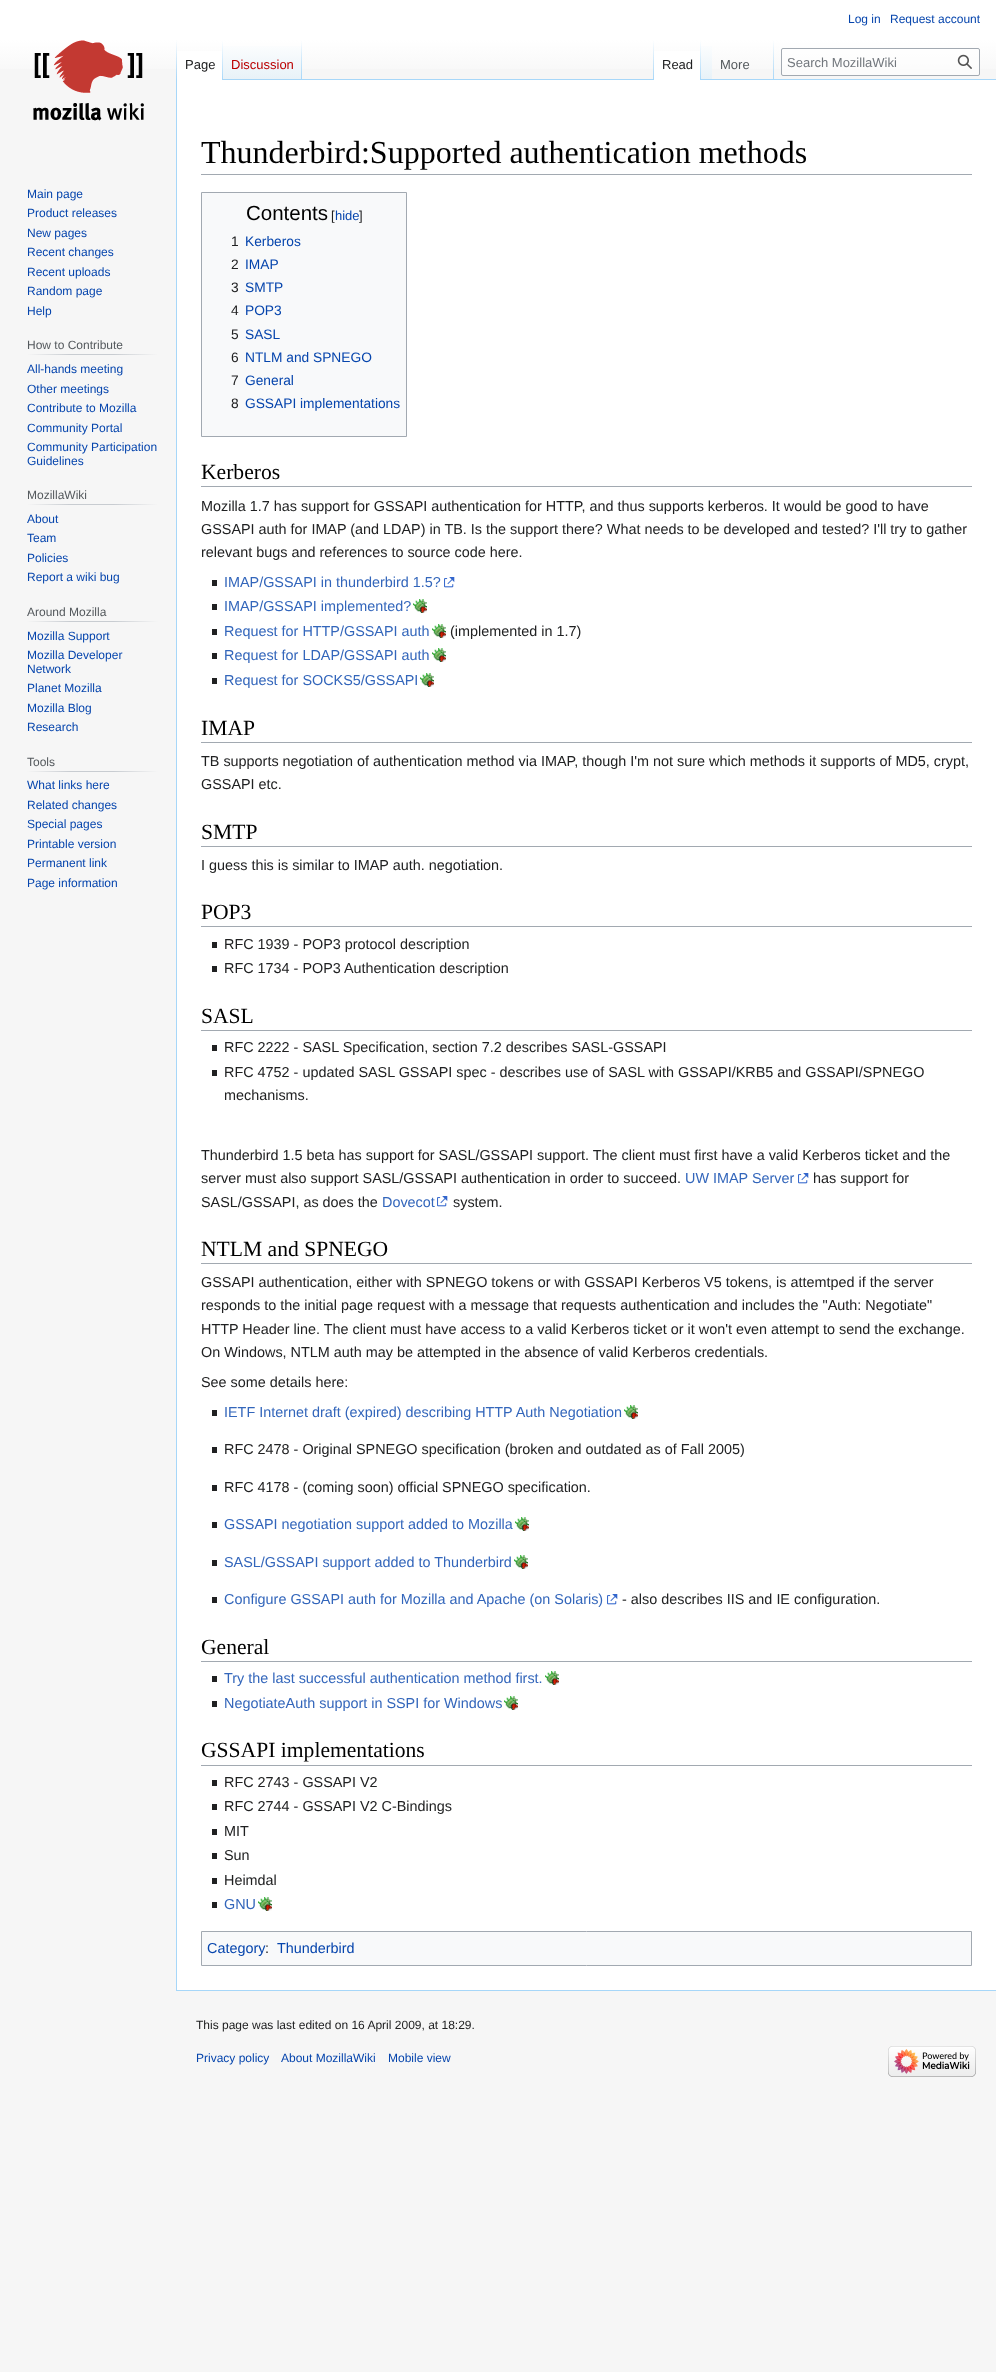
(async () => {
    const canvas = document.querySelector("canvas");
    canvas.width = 996;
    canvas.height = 2372;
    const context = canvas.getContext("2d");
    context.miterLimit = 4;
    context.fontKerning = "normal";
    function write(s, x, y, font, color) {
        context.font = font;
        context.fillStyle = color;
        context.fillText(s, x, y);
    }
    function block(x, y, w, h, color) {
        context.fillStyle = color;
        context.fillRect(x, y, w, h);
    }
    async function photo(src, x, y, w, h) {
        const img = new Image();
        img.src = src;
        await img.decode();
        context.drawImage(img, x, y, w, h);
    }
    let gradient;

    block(0, 0, 996, 2372, "rgb(246, 246, 246)");
    gradient = context.createLinearGradient(498, 0, 498, 80);
    gradient.addColorStop(0.5, "rgb(255, 255, 255)");
    gradient.addColorStop(1, "rgb(246, 246, 246)");
    context.fillStyle = gradient;
    context.fillRect(0, 0, 996, 69);
    write("Log in", 848, 23, "12px Liberation Sans", "rgb(6, 69, 173)");
    write("Request account", 890, 23, "12px Liberation Sans", "rgb(6, 69, 173)");
    block(176, 1990, 820, 1, "rgb(167, 215, 249)");
    block(176, 79, 1, 1912, "rgb(167, 215, 249)");
    gradient = context.createLinearGradient(177, 40, 177, 80);
    gradient.addColorStop(0, "rgba(167, 215, 249, 0)");
    gradient.addColorStop(1, "rgb(167, 215, 249)");
    context.fillStyle = gradient;
    context.fillRect(176, 40, 1, 40);
    block(177, 51, 45, 29, "rgb(255, 255, 255)");
    gradient = context.createLinearGradient(223, 40, 223, 80);
    gradient.addColorStop(0, "rgb(255, 255, 255)");
    gradient.addColorStop(1, "rgb(167, 215, 249)");
    context.fillStyle = gradient;
    context.fillRect(222, 40, 1, 40);
    write("Page", 185, 69, "13px Liberation Sans", "rgb(32, 33, 34)");
    gradient = context.createLinearGradient(263, 80, 263, 40);
    gradient.addColorStop(0, "rgb(119, 193, 246)");
    gradient.addColorStop(0.03, "rgb(232, 242, 248)");
    gradient.addColorStop(1, "rgb(255, 255, 255)");
    context.fillStyle = gradient;
    context.fillRect(223, 46, 79, 34);
    gradient = context.createLinearGradient(302, 40, 302, 80);
    gradient.addColorStop(0, "rgba(167, 215, 249, 0)");
    gradient.addColorStop(1, "rgb(167, 215, 249)");
    context.fillStyle = gradient;
    context.fillRect(301, 40, 1, 40);
    write("Discussion", 231, 69, "13px Liberation Sans", "rgb(186, 0, 0)");
    block(302, 79, 694, 1, "rgb(167, 215, 249)");
    gradient = context.createLinearGradient(654, 40, 654, 80);
    gradient.addColorStop(0, "rgba(167, 215, 249, 0)");
    gradient.addColorStop(1, "rgb(167, 215, 249)");
    context.fillStyle = gradient;
    context.fillRect(653, 40, 1, 40);
    block(654, 51, 46, 29, "rgb(255, 255, 255)");
    gradient = context.createLinearGradient(701, 40, 701, 80);
    gradient.addColorStop(0, "rgb(255, 255, 255)");
    gradient.addColorStop(1, "rgb(167, 215, 249)");
    context.fillStyle = gradient;
    context.fillRect(700, 40, 1, 40);
    write("Read", 662, 69, "13px Liberation Sans", "rgb(32, 33, 34)");
    gradient = context.createLinearGradient(707, 80, 707, 40);
    gradient.addColorStop(0, "rgb(119, 193, 246)");
    gradient.addColorStop(0.03, "rgb(232, 242, 248)");
    gradient.addColorStop(1, "rgb(255, 255, 255)");
    context.fillStyle = gradient;
    context.fillRect(701, 46, 11, 33);
    gradient = context.createLinearGradient(774, 40, 774, 80);
    gradient.addColorStop(0, "rgba(167, 215, 249, 0)");
    gradient.addColorStop(1, "rgb(167, 215, 249)");
    context.fillStyle = gradient;
    context.fillRect(773, 40, 1, 40);
    write("More", 720, 69, "13px Liberation Sans", "rgb(84, 89, 93)");
    context.fillStyle = "rgba(255, 255, 255, 0.5)";
    context.beginPath();
    context.roundRect(781.5, 48.5, 198, 27, 1.5);
    context.fill();
    context.strokeStyle = "rgb(162, 169, 177)";
    context.stroke();
    write("Search MozillaWiki", 787, 67, "13px Liberation Sans", "rgb(114, 119, 125)");
    await photo("media/1.png", 957, 54, 15, 15);
    await photo("media/2.png", 33, 40, 111, 81);
    write("Main page", 27, 198, "12px Liberation Sans", "rgb(6, 69, 173)");
    write("Product releases", 27, 217, "12px Liberation Sans", "rgb(6, 69, 173)");
    write("New pages", 27, 237, "12px Liberation Sans", "rgb(6, 69, 173)");
    write("Recent changes", 27, 256, "12px Liberation Sans", "rgb(6, 69, 173)");
    write("Recent uploads", 27, 276, "12px Liberation Sans", "rgb(6, 69, 173)");
    write("Random page", 27, 295, "12px Liberation Sans", "rgb(6, 69, 173)");
    write("Help", 27, 315, "12px Liberation Sans", "rgb(6, 69, 173)");
    gradient = context.createLinearGradient(27, 355, 158, 355);
    gradient.addColorStop(0, "rgb(246, 246, 246)");
    gradient.addColorStop(0.33, "rgb(200, 204, 209)");
    gradient.addColorStop(0.66, "rgb(200, 204, 209)");
    gradient.addColorStop(1, "rgb(246, 246, 246)");
    context.fillStyle = gradient;
    context.fillRect(27, 354, 131, 1);
    write("How to Contribute", 27, 349, "12px Liberation Sans", "rgb(84, 89, 93)");
    write("All-hands meeting", 27, 373, "12px Liberation Sans", "rgb(6, 69, 173)");
    write("Other meetings", 27, 393, "12px Liberation Sans", "rgb(6, 69, 173)");
    write("Contribute to Mozilla", 27, 412, "12px Liberation Sans", "rgb(6, 69, 173)");
    write("Community Portal", 27, 432, "12px Liberation Sans", "rgb(6, 69, 173)");
    write("Community Participation", 27, 451, "12px Liberation Sans", "rgb(6, 69, 173)");
    write("Guidelines", 27, 465, "12px Liberation Sans", "rgb(6, 69, 173)");
    gradient = context.createLinearGradient(27, 505, 158, 505);
    gradient.addColorStop(0, "rgb(246, 246, 246)");
    gradient.addColorStop(0.33, "rgb(200, 204, 209)");
    gradient.addColorStop(0.66, "rgb(200, 204, 209)");
    gradient.addColorStop(1, "rgb(246, 246, 246)");
    context.fillStyle = gradient;
    context.fillRect(27, 504, 131, 1);
    write("MozillaWiki", 27, 499, "12px Liberation Sans", "rgb(84, 89, 93)");
    write("About", 27, 523, "12px Liberation Sans", "rgb(6, 69, 173)");
    write("Team", 27, 542, "12px Liberation Sans", "rgb(6, 69, 173)");
    write("Policies", 27, 562, "12px Liberation Sans", "rgb(6, 69, 173)");
    write("Report a wiki bug", 27, 581, "12px Liberation Sans", "rgb(6, 69, 173)");
    gradient = context.createLinearGradient(27, 622, 158, 622);
    gradient.addColorStop(0, "rgb(246, 246, 246)");
    gradient.addColorStop(0.33, "rgb(200, 204, 209)");
    gradient.addColorStop(0.66, "rgb(200, 204, 209)");
    gradient.addColorStop(1, "rgb(246, 246, 246)");
    context.fillStyle = gradient;
    context.fillRect(27, 621, 131, 1);
    write("Around Mozilla", 27, 616, "12px Liberation Sans", "rgb(84, 89, 93)");
    write("Mozilla Support", 27, 640, "12px Liberation Sans", "rgb(6, 69, 173)");
    write("Mozilla Developer", 27, 659, "12px Liberation Sans", "rgb(6, 69, 173)");
    write("Network", 27, 673, "12px Liberation Sans", "rgb(6, 69, 173)");
    write("Planet Mozilla", 27, 692, "12px Liberation Sans", "rgb(6, 69, 173)");
    write("Mozilla Blog", 27, 712, "12px Liberation Sans", "rgb(6, 69, 173)");
    write("Research", 27, 731, "12px Liberation Sans", "rgb(6, 69, 173)");
    gradient = context.createLinearGradient(27, 772, 158, 772);
    gradient.addColorStop(0, "rgb(246, 246, 246)");
    gradient.addColorStop(0.33, "rgb(200, 204, 209)");
    gradient.addColorStop(0.66, "rgb(200, 204, 209)");
    gradient.addColorStop(1, "rgb(246, 246, 246)");
    context.fillStyle = gradient;
    context.fillRect(27, 771, 131, 1);
    write("Tools", 27, 766, "12px Liberation Sans", "rgb(84, 89, 93)");
    write("What links here", 27, 789, "12px Liberation Sans", "rgb(6, 69, 173)");
    write("Related changes", 27, 809, "12px Liberation Sans", "rgb(6, 69, 173)");
    write("Special pages", 27, 828, "12px Liberation Sans", "rgb(6, 69, 173)");
    write("Printable version", 27, 848, "12px Liberation Sans", "rgb(6, 69, 173)");
    write("Permanent link", 27, 867, "12px Liberation Sans", "rgb(6, 69, 173)");
    write("Page information", 27, 887, "12px Liberation Sans", "rgb(6, 69, 173)");
    block(177, 80, 819, 1910, "rgb(255, 255, 255)");
    block(201, 174, 771, 1, "rgb(162, 169, 177)");
    write("Thunderbird:Supported authentication methods", 201, 163, "32px Liberation Serif", "rgb(0, 0, 0)");
    context.fillStyle = "rgb(248, 249, 250)";
    context.beginPath();
    context.rect(201.5, 192.5, 205, 244);
    context.fill();
    context.stroke();
    write("Contents", 246, 220, "20.5px Liberation Sans", "rgb(0, 0, 0)");
    write("[", 331, 220, "13px Liberation Sans", "rgb(32, 33, 34)");
    write("hide", 335, 220, "13px Liberation Sans", "rgb(6, 69, 173)");
    write("]", 359, 220, "13px Liberation Sans", "rgb(32, 33, 34)");
    write("1", 231, 246, "13.75px Liberation Sans", "rgb(32, 33, 34)");
    write("Kerberos", 245, 246, "13.75px Liberation Sans", "rgb(6, 69, 173)");
    write("2", 231, 269, "13.75px Liberation Sans", "rgb(32, 33, 34)");
    write("IMAP", 245, 269, "13.75px Liberation Sans", "rgb(6, 69, 173)");
    write("3", 231, 292, "13.75px Liberation Sans", "rgb(32, 33, 34)");
    write("SMTP", 245, 292, "13.75px Liberation Sans", "rgb(6, 69, 173)");
    write("4", 231, 315, "13.75px Liberation Sans", "rgb(32, 33, 34)");
    write("POP3", 245, 315, "13.75px Liberation Sans", "rgb(6, 69, 173)");
    write("5", 231, 339, "13.75px Liberation Sans", "rgb(32, 33, 34)");
    write("SASL", 245, 339, "13.75px Liberation Sans", "rgb(6, 69, 173)");
    write("6", 231, 362, "13.75px Liberation Sans", "rgb(32, 33, 34)");
    write("NTLM and SPNEGO", 245, 362, "13.75px Liberation Sans", "rgb(6, 69, 173)");
    write("7", 231, 385, "13.75px Liberation Sans", "rgb(32, 33, 34)");
    write("General", 245, 385, "13.75px Liberation Sans", "rgb(6, 69, 173)");
    write("8", 231, 408, "13.75px Liberation Sans", "rgb(32, 33, 34)");
    write("GSSAPI implementations", 245, 408, "13.75px Liberation Sans", "rgb(6, 69, 173)");
    block(201, 486, 771, 1, "rgb(162, 169, 177)");
    write("Kerberos", 201, 479, "21.6px Liberation Serif", "rgb(0, 0, 0)");
    write("Mozilla 1.7 has support for GSSAPI authentication for HTTP, and thus supports kerberos. It would be good to have", 201, 511, "14.4px Liberation Sans", "rgb(32, 33, 34)");
    write("GSSAPI auth for IMAP (and LDAP) in TB. Is the support there? What needs to be developed and tested? I'll try to gather", 201, 534, "14.4px Liberation Sans", "rgb(32, 33, 34)");
    write("relevant bugs and references to source code here.", 201, 557, "14.4px Liberation Sans", "rgb(32, 33, 34)");
    block(212, 580, 5, 6, "rgb(32, 33, 34)");
    write("IMAP/GSSAPI in thunderbird 1.5?", 224, 587, "14.4px Liberation Sans", "rgb(51, 102, 187)");
    await photo("media/3.png", 444, 577, 11, 11);
    block(212, 604, 5, 6, "rgb(32, 33, 34)");
    write("IMAP/GSSAPI implemented?", 224, 611, "14.4px Liberation Sans", "rgb(51, 102, 187)");
    await photo("media/4.png", 413, 599, 14, 14);
    block(212, 629, 5, 6, "rgb(32, 33, 34)");
    write("Request for HTTP/GSSAPI auth", 224, 636, "14.4px Liberation Sans", "rgb(51, 102, 187)");
    await photo("media/5.png", 432, 624, 14, 14);
    write("(implemented in 1.7)", 450, 636, "14.4px Liberation Sans", "rgb(32, 33, 34)");
    block(212, 653, 5, 6, "rgb(32, 33, 34)");
    write("Request for LDAP/GSSAPI auth", 224, 660, "14.4px Liberation Sans", "rgb(51, 102, 187)");
    await photo("media/5.png", 432, 648, 14, 14);
    block(212, 678, 5, 6, "rgb(32, 33, 34)");
    write("Request for SOCKS5/GSSAPI", 224, 685, "14.4px Liberation Sans", "rgb(51, 102, 187)");
    await photo("media/4.png", 420, 673, 14, 14);
    block(201, 742, 771, 1, "rgb(162, 169, 177)");
    write("IMAP", 201, 735, "21.6px Liberation Serif", "rgb(0, 0, 0)");
    write("TB supports negotiation of authentication method via IMAP, though I'm not sure which methods it supports of MD5, crypt,", 201, 766, "14.4px Liberation Sans", "rgb(32, 33, 34)");
    write("GSSAPI etc.", 201, 789, "14.4px Liberation Sans", "rgb(32, 33, 34)");
    block(201, 846, 771, 1, "rgb(162, 169, 177)");
    write("SMTP", 201, 839, "21.6px Liberation Serif", "rgb(0, 0, 0)");
    write("I guess this is similar to IMAP auth. negotiation.", 201, 870, "14.4px Liberation Sans", "rgb(32, 33, 34)");
    block(201, 926, 771, 1, "rgb(162, 169, 177)");
    write("POP3", 201, 919, "21.6px Liberation Serif", "rgb(0, 0, 0)");
    block(212, 942, 5, 6, "rgb(32, 33, 34)");
    write("RFC 1939 - POP3 protocol description", 224, 949, "14.4px Liberation Sans", "rgb(32, 33, 34)");
    block(212, 966, 5, 6, "rgb(32, 33, 34)");
    write("RFC 1734 - POP3 Authentication description", 224, 973, "14.4px Liberation Sans", "rgb(32, 33, 34)");
    block(201, 1030, 771, 1, "rgb(162, 169, 177)");
    write("SASL", 201, 1023, "21.6px Liberation Serif", "rgb(0, 0, 0)");
    block(212, 1045, 5, 6, "rgb(32, 33, 34)");
    write("RFC 2222 - SASL Specification, section 7.2 describes SASL-GSSAPI", 224, 1052, "14.4px Liberation Sans", "rgb(32, 33, 34)");
    block(212, 1070, 5, 6, "rgb(32, 33, 34)");
    write("RFC 4752 - updated SASL GSSAPI spec - describes use of SASL with GSSAPI/KRB5 and GSSAPI/SPNEGO", 224, 1077, "14.4px Liberation Sans", "rgb(32, 33, 34)");
    write("mechanisms.", 224, 1100, "14.4px Liberation Sans", "rgb(32, 33, 34)");
    write("Thunderbird 1.5 beta has support for SASL/GSSAPI support. The client must first have a valid Kerberos ticket and the", 201, 1160, "14.4px Liberation Sans", "rgb(32, 33, 34)");
    write("server must also support SASL/GSSAPI authentication in order to succeed.", 201, 1183, "14.4px Liberation Sans", "rgb(32, 33, 34)");
    write("UW IMAP Server", 685, 1183, "14.4px Liberation Sans", "rgb(51, 102, 187)");
    await photo("media/3.png", 798, 1173, 11, 11);
    write("has support for", 813, 1183, "14.4px Liberation Sans", "rgb(32, 33, 34)");
    write("SASL/GSSAPI, as does the", 201, 1207, "14.4px Liberation Sans", "rgb(32, 33, 34)");
    write("Dovecot", 382, 1207, "14.4px Liberation Sans", "rgb(51, 102, 187)");
    await photo("media/3.png", 437, 1196, 11, 11);
    write("system.", 453, 1207, "14.4px Liberation Sans", "rgb(32, 33, 34)");
    block(201, 1263, 771, 1, "rgb(162, 169, 177)");
    write("NTLM and SPNEGO", 201, 1256, "21.6px Liberation Serif", "rgb(0, 0, 0)");
    write("GSSAPI authentication, either with SPNEGO tokens or with GSSAPI Kerberos V5 tokens, is attemtped if the server", 201, 1287, "14.4px Liberation Sans", "rgb(32, 33, 34)");
    write("responds to the initial page request with a message that requests authentication and includes the \"Auth: Negotiate\"", 201, 1310, "14.4px Liberation Sans", "rgb(32, 33, 34)");
    write("HTTP Header line. The client must have access to a valid Kerberos ticket or it won't even attempt to send the exchange.", 201, 1334, "14.4px Liberation Sans", "rgb(32, 33, 34)");
    write("On Windows, NTLM auth may be attempted in the absence of valid Kerberos credentials.", 201, 1357, "14.4px Liberation Sans", "rgb(32, 33, 34)");
    write("See some details here:", 201, 1387, "14.4px Liberation Sans", "rgb(32, 33, 34)");
    block(212, 1410, 5, 6, "rgb(32, 33, 34)");
    write("IETF Internet draft (expired) describing HTTP Auth Negotiation", 224, 1417, "14.4px Liberation Sans", "rgb(51, 102, 187)");
    await photo("media/4.png", 624, 1405, 14, 14);
    block(212, 1447, 5, 6, "rgb(32, 33, 34)");
    write("RFC 2478 - Original SPNEGO specification (broken and outdated as of Fall 2005)", 224, 1454, "14.4px Liberation Sans", "rgb(32, 33, 34)");
    block(212, 1485, 5, 6, "rgb(32, 33, 34)");
    write("RFC 4178 - (coming soon) official SPNEGO specification.", 224, 1492, "14.4px Liberation Sans", "rgb(32, 33, 34)");
    block(212, 1522, 5, 6, "rgb(32, 33, 34)");
    write("GSSAPI negotiation support added to Mozilla", 224, 1529, "14.4px Liberation Sans", "rgb(51, 102, 187)");
    await photo("media/5.png", 515, 1517, 14, 14);
    block(212, 1560, 5, 6, "rgb(32, 33, 34)");
    write("SASL/GSSAPI support added to Thunderbird", 224, 1567, "14.4px Liberation Sans", "rgb(51, 102, 187)");
    await photo("media/6.png", 514, 1555, 14, 14);
    block(212, 1597, 5, 6, "rgb(32, 33, 34)");
    write("Configure GSSAPI auth for Mozilla and Apache (on Solaris)", 224, 1604, "14.4px Liberation Sans", "rgb(51, 102, 187)");
    await photo("media/3.png", 607, 1594, 11, 11);
    write("- also describes IIS and IE configuration.", 622, 1604, "14.4px Liberation Sans", "rgb(32, 33, 34)");
    block(201, 1661, 771, 1, "rgb(162, 169, 177)");
    write("General", 201, 1654, "21.6px Liberation Serif", "rgb(0, 0, 0)");
    block(212, 1676, 5, 6, "rgb(32, 33, 34)");
    write("Try the last successful authentication method first.", 224, 1683, "14.4px Liberation Sans", "rgb(51, 102, 187)");
    await photo("media/4.png", 545, 1671, 14, 14);
    block(212, 1701, 5, 6, "rgb(32, 33, 34)");
    write("NegotiateAuth support in SSPI for Windows", 224, 1708, "14.4px Liberation Sans", "rgb(51, 102, 187)");
    await photo("media/5.png", 504, 1696, 14, 14);
    block(201, 1765, 771, 1, "rgb(162, 169, 177)");
    write("GSSAPI implementations", 201, 1757, "21.6px Liberation Serif", "rgb(0, 0, 0)");
    block(212, 1780, 5, 6, "rgb(32, 33, 34)");
    write("RFC 2743 - GSSAPI V2", 224, 1787, "14.4px Liberation Sans", "rgb(32, 33, 34)");
    block(212, 1804, 5, 6, "rgb(32, 33, 34)");
    write("RFC 2744 - GSSAPI V2 C-Bindings", 224, 1811, "14.4px Liberation Sans", "rgb(32, 33, 34)");
    block(212, 1829, 5, 6, "rgb(32, 33, 34)");
    write("MIT", 224, 1836, "14.4px Liberation Sans", "rgb(32, 33, 34)");
    block(212, 1853, 5, 6, "rgb(32, 33, 34)");
    write("Sun", 224, 1860, "14.4px Liberation Sans", "rgb(32, 33, 34)");
    block(212, 1878, 5, 6, "rgb(32, 33, 34)");
    write("Heimdal", 224, 1885, "14.4px Liberation Sans", "rgb(32, 33, 34)");
    block(212, 1902, 5, 6, "rgb(32, 33, 34)");
    write("GNU", 224, 1909, "14.4px Liberation Sans", "rgb(51, 102, 187)");
    await photo("media/5.png", 258, 1897, 14, 14);
    context.fillStyle = "rgb(248, 249, 250)";
    context.beginPath();
    context.rect(201.5, 1931.5, 770, 34);
    context.fill();
    context.stroke();
    write("Category", 207, 1953, "14.4px Liberation Sans", "rgb(6, 69, 173)");
    write(":", 265, 1953, "14.4px Liberation Sans", "rgb(32, 33, 34)");
    write("Thunderbird", 277, 1953, "14.4px Liberation Sans", "rgb(6, 69, 173)");
    write("This page was last edited on 16 April 2009, at 18:29.", 196, 2029, "12px Liberation Sans", "rgb(32, 33, 34)");
    write("Privacy policy", 196, 2062, "12px Liberation Sans", "rgb(6, 69, 173)");
    write("About MozillaWiki", 281, 2062, "12px Liberation Sans", "rgb(6, 69, 173)");
    write("Mobile view", 388, 2062, "12px Liberation Sans", "rgb(6, 69, 173)");
    await photo("media/7.png", 888, 2046, 88, 31);
})();
